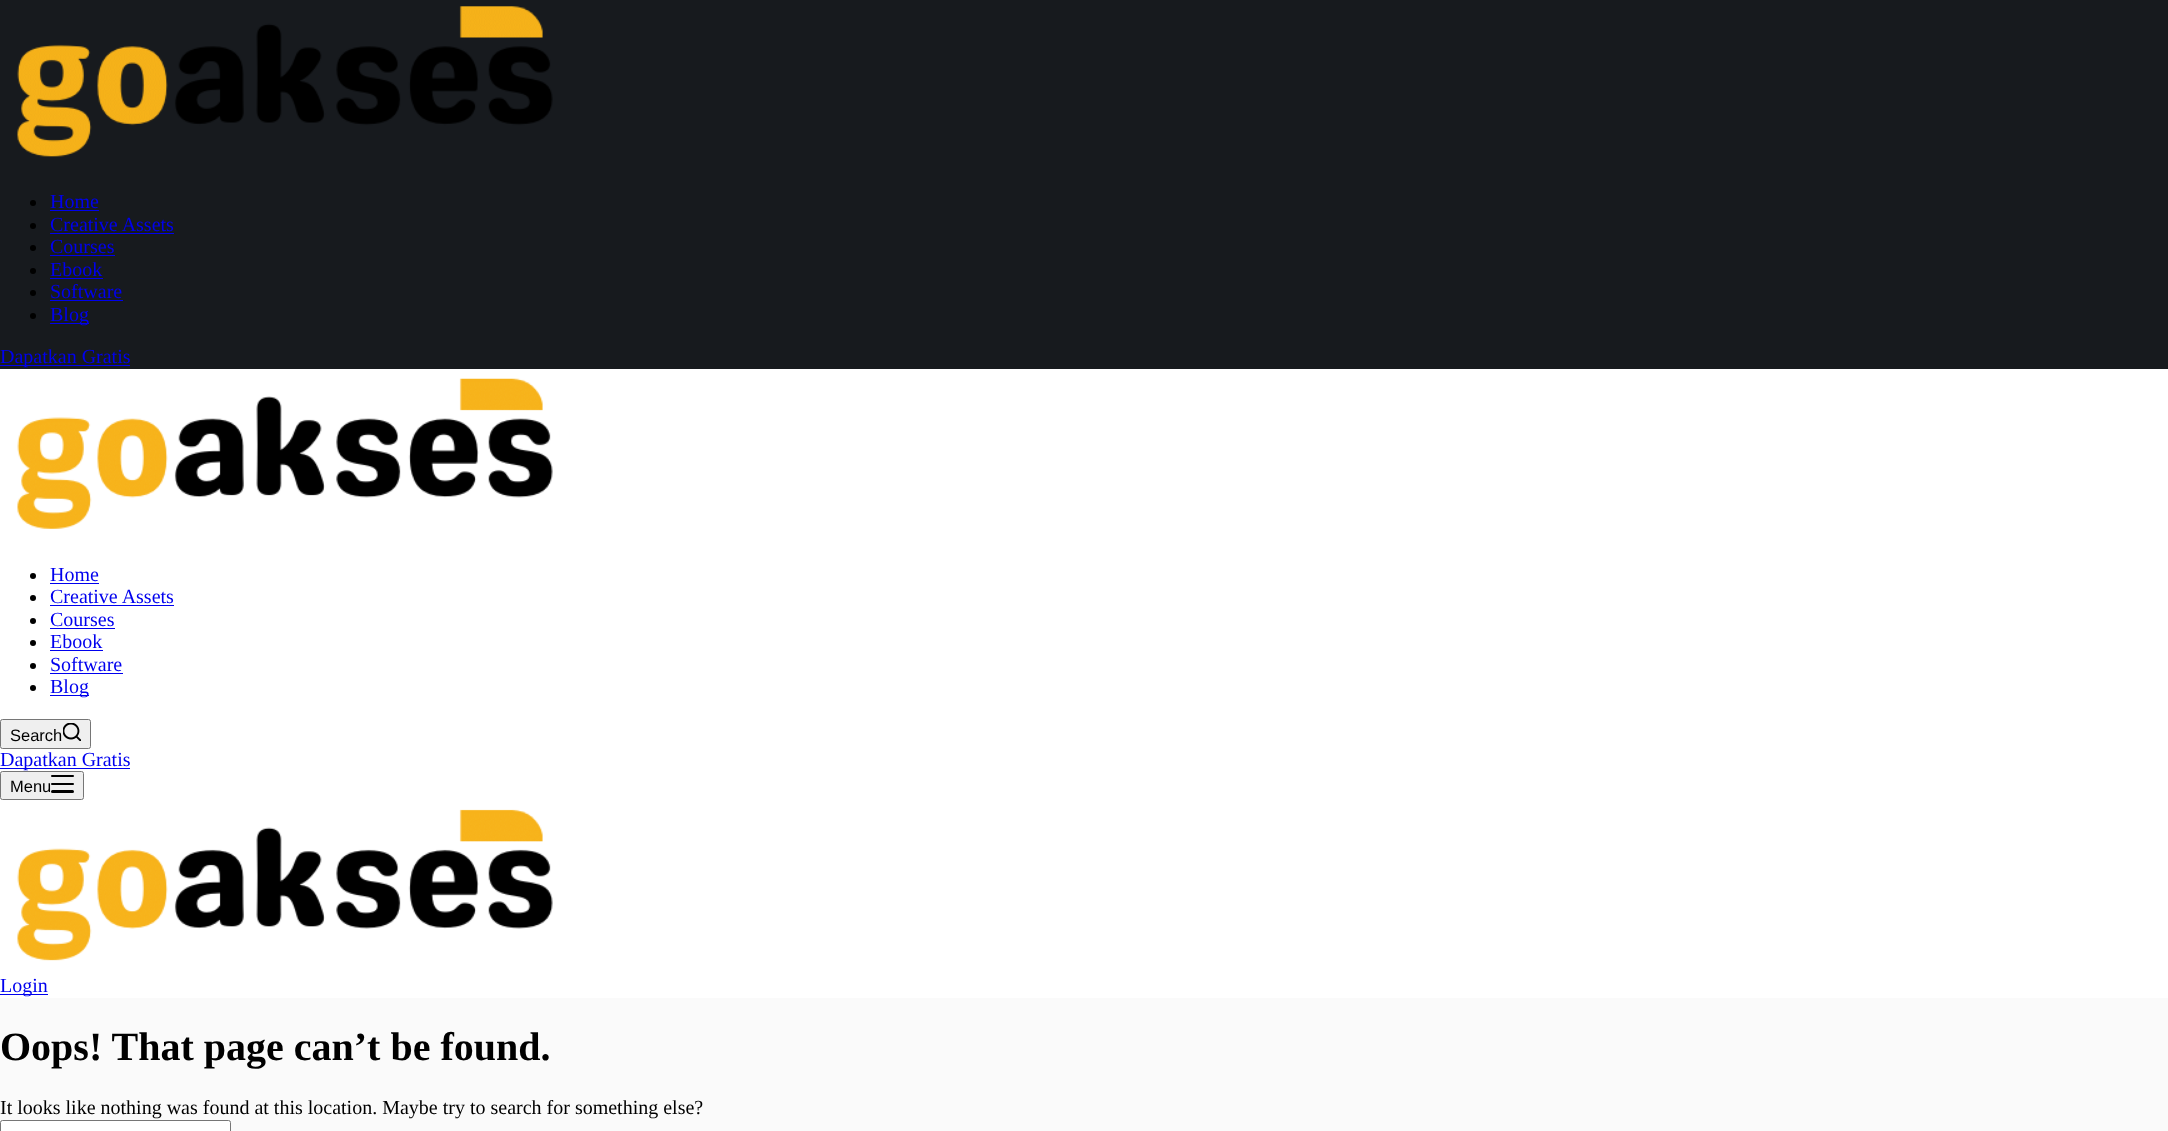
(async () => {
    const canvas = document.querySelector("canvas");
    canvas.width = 2168;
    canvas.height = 1131;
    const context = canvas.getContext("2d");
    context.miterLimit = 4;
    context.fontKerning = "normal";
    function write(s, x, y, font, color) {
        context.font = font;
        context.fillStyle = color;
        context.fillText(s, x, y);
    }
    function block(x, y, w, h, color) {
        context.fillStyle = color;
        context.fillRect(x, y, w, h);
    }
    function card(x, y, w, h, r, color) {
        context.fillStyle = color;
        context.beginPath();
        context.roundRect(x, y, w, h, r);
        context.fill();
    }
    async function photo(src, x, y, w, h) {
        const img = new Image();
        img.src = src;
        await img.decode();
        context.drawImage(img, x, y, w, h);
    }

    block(0, 0, 2168, 1131, "rgb(250, 250, 250)");
    block(0, 0, 2168, 369, "rgb(23, 26, 30)");
    await photo("media/1.png", 17, 6, 536, 151);
    context.fillStyle = "rgb(0, 0, 0)";
    context.beginPath();
    context.arc(33, 203, 3, 0, Math.PI * 2);
    context.fill();
    write("Home", 50, 208, "20px Liberation Serif", "rgb(0, 0, 238)");
    block(50, 210, 49, 1, "rgb(0, 0, 238)");
    context.fillStyle = "rgb(0, 0, 0)";
    context.beginPath();
    context.arc(33, 226, 3, 0, Math.PI * 2);
    context.fill();
    write("Creative Assets", 50, 231, "20px Liberation Serif", "rgb(0, 0, 238)");
    block(50, 233, 124, 1, "rgb(0, 0, 238)");
    context.fillStyle = "rgb(0, 0, 0)";
    context.beginPath();
    context.arc(33, 248, 3, 0, Math.PI * 2);
    context.fill();
    write("Courses", 50, 253, "20px Liberation Serif", "rgb(0, 0, 238)");
    block(50, 255, 65, 1, "rgb(0, 0, 238)");
    context.fillStyle = "rgb(0, 0, 0)";
    context.beginPath();
    context.arc(33, 271, 3, 0, Math.PI * 2);
    context.fill();
    write("Ebook", 50, 276, "20px Liberation Serif", "rgb(0, 0, 238)");
    block(50, 278, 53, 1, "rgb(0, 0, 238)");
    context.fillStyle = "rgb(0, 0, 0)";
    context.beginPath();
    context.arc(33, 293, 3, 0, Math.PI * 2);
    context.fill();
    write("Software", 50, 298, "20px Liberation Serif", "rgb(0, 0, 238)");
    block(50, 300, 73, 1, "rgb(0, 0, 238)");
    context.fillStyle = "rgb(0, 0, 0)";
    context.beginPath();
    context.arc(33, 316, 3, 0, Math.PI * 2);
    context.fill();
    block(50, 323, 39, 1, "rgb(0, 0, 238)");
    write("Blog", 50, 321, "20px Liberation Serif", "rgb(0, 0, 238)");
    block(0, 365, 130, 1, "rgb(0, 0, 238)");
    write("Dapatkan Gratis", 0, 363, "20px Liberation Serif", "rgb(0, 0, 238)");
    block(0, 369, 2168, 629, "rgb(255, 255, 255)");
    await photo("media/2.png", 17, 378, 536, 151);
    context.fillStyle = "rgb(0, 0, 0)";
    context.beginPath();
    context.arc(33, 576, 3, 0, Math.PI * 2);
    context.fill();
    write("Home", 50, 581, "20px Liberation Serif", "rgb(0, 0, 238)");
    block(50, 583, 49, 1, "rgb(0, 0, 238)");
    context.fillStyle = "rgb(0, 0, 0)";
    context.beginPath();
    context.arc(33, 598, 3, 0, Math.PI * 2);
    context.fill();
    write("Creative Assets", 50, 603, "20px Liberation Serif", "rgb(0, 0, 238)");
    block(50, 605, 124, 1, "rgb(0, 0, 238)");
    context.fillStyle = "rgb(0, 0, 0)";
    context.beginPath();
    context.arc(33, 621, 3, 0, Math.PI * 2);
    context.fill();
    write("Courses", 50, 626, "20px Liberation Serif", "rgb(0, 0, 238)");
    block(50, 628, 65, 1, "rgb(0, 0, 238)");
    context.fillStyle = "rgb(0, 0, 0)";
    context.beginPath();
    context.arc(33, 643, 3, 0, Math.PI * 2);
    context.fill();
    write("Ebook", 50, 648, "20px Liberation Serif", "rgb(0, 0, 238)");
    block(50, 650, 53, 1, "rgb(0, 0, 238)");
    context.fillStyle = "rgb(0, 0, 0)";
    context.beginPath();
    context.arc(33, 666, 3, 0, Math.PI * 2);
    context.fill();
    write("Software", 50, 671, "20px Liberation Serif", "rgb(0, 0, 238)");
    block(50, 673, 73, 1, "rgb(0, 0, 238)");
    context.fillStyle = "rgb(0, 0, 0)";
    context.beginPath();
    context.arc(33, 688, 3, 0, Math.PI * 2);
    context.fill();
    block(50, 695, 39, 1, "rgb(0, 0, 238)");
    write("Blog", 50, 693, "20px Liberation Serif", "rgb(0, 0, 238)");
    context.fillStyle = "rgb(239, 239, 239)";
    context.beginPath();
    context.roundRect(0.5, 719.5, 90, 29, 2);
    context.fill();
    context.strokeStyle = "rgb(118, 118, 118)";
    context.stroke();
    write("Search", 10, 741, "16.5px Liberation Sans", "rgb(0, 0, 0)");
    await photo("media/3.png", 63, 723, 18, 18);
    block(0, 768, 130, 1, "rgb(0, 0, 238)");
    write("Dapatkan Gratis", 0, 766, "20px Liberation Serif", "rgb(0, 0, 238)");
    context.fillStyle = "rgb(239, 239, 239)";
    context.beginPath();
    context.roundRect(0.5, 771.5, 83, 28, 2);
    context.fill();
    context.stroke();
    card(51, 775, 23, 2, 1, "rgb(0, 0, 0)");
    write("Menu", 10, 792, "16.5px Liberation Sans", "rgb(0, 0, 0)");
    card(51, 783, 23, 2, 1, "rgb(0, 0, 0)");
    card(51, 790, 23, 3, 1.5, "rgb(0, 0, 0)");
    await photo("media/4.png", 17, 809, 536, 152);
    block(0, 994, 48, 1, "rgb(0, 0, 238)");
    write("Login", 0, 992, "20px Liberation Serif", "rgb(0, 0, 238)");
    write("Oops! That page can’t be found.", 0, 1060, "bold 40px Liberation Serif", "rgb(0, 0, 0)");
    write("It looks like nothing was found at this location. Maybe try to search for something else?", 0, 1114, "20px Liberation Serif", "rgb(0, 0, 0)");
    context.fillStyle = "rgb(255, 255, 255)";
    context.beginPath();
    context.roundRect(0.5, 1120.5, 230, 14, 2);
    context.fill();
    context.stroke();
})();
